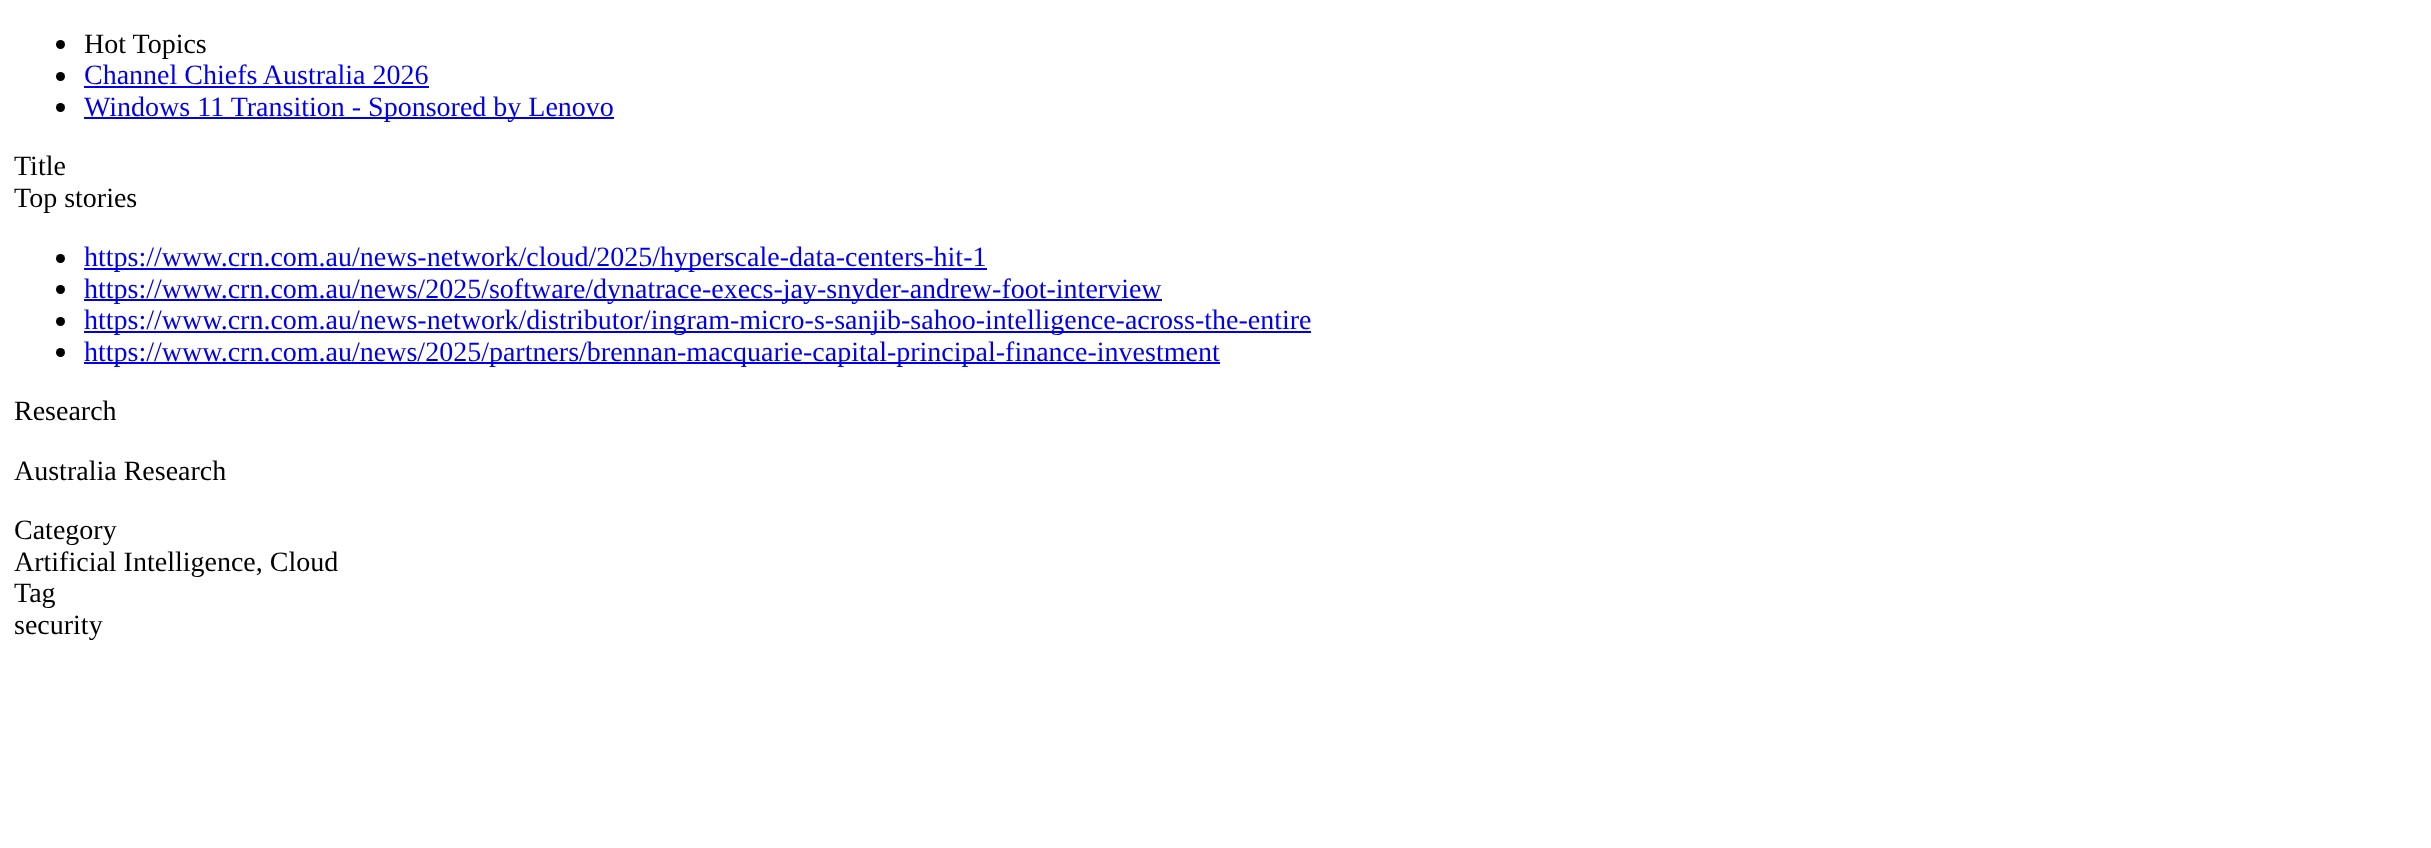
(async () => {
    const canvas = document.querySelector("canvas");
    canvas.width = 2431;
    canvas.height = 848;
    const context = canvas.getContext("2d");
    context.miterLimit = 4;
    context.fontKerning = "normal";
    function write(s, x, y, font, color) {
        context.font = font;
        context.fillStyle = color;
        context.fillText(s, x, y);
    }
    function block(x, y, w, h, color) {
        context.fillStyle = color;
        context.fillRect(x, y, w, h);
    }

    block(0, 0, 2431, 848, "rgb(255, 255, 255)");
    context.fillStyle = "rgb(0, 0, 0)";
    context.beginPath();
    context.arc(60.5, 44.5, 4.5, 0, Math.PI * 2);
    context.fill();
    write("Hot Topics", 84, 53, "28px Liberation Serif", "rgb(0, 0, 0)");
    context.beginPath();
    context.arc(60.5, 76.5, 4.5, 0, Math.PI * 2);
    context.fill();
    write("Channel Chiefs Australia 2026", 84, 84, "28px Liberation Serif", "rgb(0, 0, 238)");
    block(84, 86, 345, 2, "rgb(0, 0, 238)");
    context.fillStyle = "rgb(0, 0, 0)";
    context.beginPath();
    context.arc(60.5, 107.5, 4.5, 0, Math.PI * 2);
    context.fill();
    block(84, 117, 530, 2, "rgb(0, 0, 238)");
    write("Windows 11 Transition - Sponsored by Lenovo", 84, 116, "28px Liberation Serif", "rgb(0, 0, 238)");
    write("Title", 14, 175, "28px Liberation Serif", "rgb(0, 0, 0)");
    write("Top stories", 14, 207, "28px Liberation Serif", "rgb(0, 0, 0)");
    context.beginPath();
    context.arc(60.5, 258.5, 4.5, 0, Math.PI * 2);
    context.fill();
    block(84, 268, 903, 2, "rgb(0, 0, 238)");
    write("https://www.crn.com.au/news-network/cloud/2025/hyperscale-data-centers-hit-1", 84, 266, "28px Liberation Serif", "rgb(0, 0, 238)");
    context.fillStyle = "rgb(0, 0, 0)";
    context.beginPath();
    context.arc(60.5, 289.5, 4.5, 0, Math.PI * 2);
    context.fill();
    block(84, 299, 1078, 2, "rgb(0, 0, 238)");
    write("https://www.crn.com.au/news/2025/software/dynatrace-execs-jay-snyder-andrew-foot-interview", 84, 298, "28px Liberation Serif", "rgb(0, 0, 238)");
    context.fillStyle = "rgb(0, 0, 0)";
    context.beginPath();
    context.arc(60.5, 321.5, 4.5, 0, Math.PI * 2);
    context.fill();
    block(84, 331, 1227, 2, "rgb(0, 0, 238)");
    write("https://www.crn.com.au/news-network/distributor/ingram-micro-s-sanjib-sahoo-intelligence-across-the-entire", 84, 329, "28px Liberation Serif", "rgb(0, 0, 238)");
    context.fillStyle = "rgb(0, 0, 0)";
    context.beginPath();
    context.arc(60.5, 352.5, 4.5, 0, Math.PI * 2);
    context.fill();
    block(84, 362, 1136, 2, "rgb(0, 0, 238)");
    write("https://www.crn.com.au/news/2025/partners/brennan-macquarie-capital-principal-finance-investment", 84, 361, "28px Liberation Serif", "rgb(0, 0, 238)");
    write("Research", 14, 420, "28px Liberation Serif", "rgb(0, 0, 0)");
    write("Australia Research", 14, 480, "28px Liberation Serif", "rgb(0, 0, 0)");
    write("Category", 14, 539, "28px Liberation Serif", "rgb(0, 0, 0)");
    write("Artificial Intelligence, Cloud", 14, 571, "28px Liberation Serif", "rgb(0, 0, 0)");
    write("Tag", 14, 602, "28px Liberation Serif", "rgb(0, 0, 0)");
    write("security", 14, 634, "28px Liberation Serif", "rgb(0, 0, 0)");
})();
